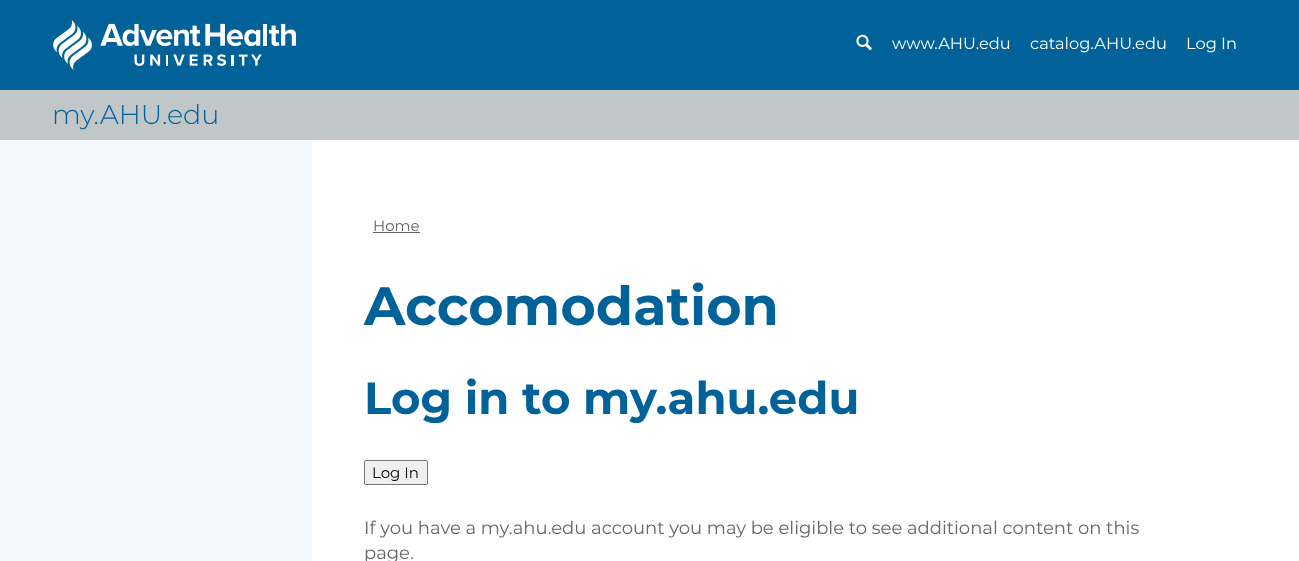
(async () => {
    const canvas = document.querySelector("canvas");
    canvas.width = 1299;
    canvas.height = 561;
    const context = canvas.getContext("2d");
    context.miterLimit = 4;
    context.fontKerning = "normal";
    function write(s, x, y, font, color) {
        context.font = font;
        context.fillStyle = color;
        context.fillText(s, x, y);
    }
    function block(x, y, w, h, color) {
        context.fillStyle = color;
        context.fillRect(x, y, w, h);
    }
    async function photo(src, x, y, w, h) {
        const img = new Image();
        img.src = src;
        await img.decode();
        context.drawImage(img, x, y, w, h);
    }

    block(0, 0, 1299, 561, "rgb(255, 255, 255)");
    block(0, 0, 1299, 90, "rgb(0, 98, 152)");
    await photo("media/1.png", 53, 19, 243, 51);
    await photo("media/2.png", 856, 34, 16, 17);
    write("www.AHU.edu", 892, 49, "16.25px Montserrat", "rgb(255, 255, 255)");
    write("catalog.AHU.edu", 1030, 49, "16.25px Montserrat", "rgb(255, 255, 255)");
    write("Log In", 1186, 49, "16.25px Montserrat", "rgb(255, 255, 255)");
    block(0, 90, 1299, 50, "rgb(193, 198, 200)");
    write("my.AHU.edu", 52, 124, "300 27px Montserrat", "rgb(0, 98, 152)");
    block(0, 140, 312, 421, "rgb(243, 248, 251)");
    write("Home", 373, 231, "15px Montserrat", "rgb(102, 102, 102)");
    block(373, 232, 47, 1, "rgb(102, 102, 102)");
    write("Accomodation", 364, 325, "bold 54px Montserrat", "rgb(0, 98, 152)");
    write("Log in to my.ahu.edu", 364, 414, "bold 45px Montserrat", "rgb(0, 98, 152)");
    context.fillStyle = "rgb(239, 239, 239)";
    context.beginPath();
    context.roundRect(364.5, 460.5, 63, 24, 1.5);
    context.fill();
    context.strokeStyle = "rgb(118, 118, 118)";
    context.stroke();
    write("Log In", 372, 478, "15px Montserrat", "rgb(0, 0, 0)");
    write("If you have a my.ahu.edu account you may be eligible to see additional content on this", 364, 534, "18px Montserrat", "rgb(102, 102, 102)");
    write("page.", 364, 559, "18px Montserrat", "rgb(102, 102, 102)");
})();
